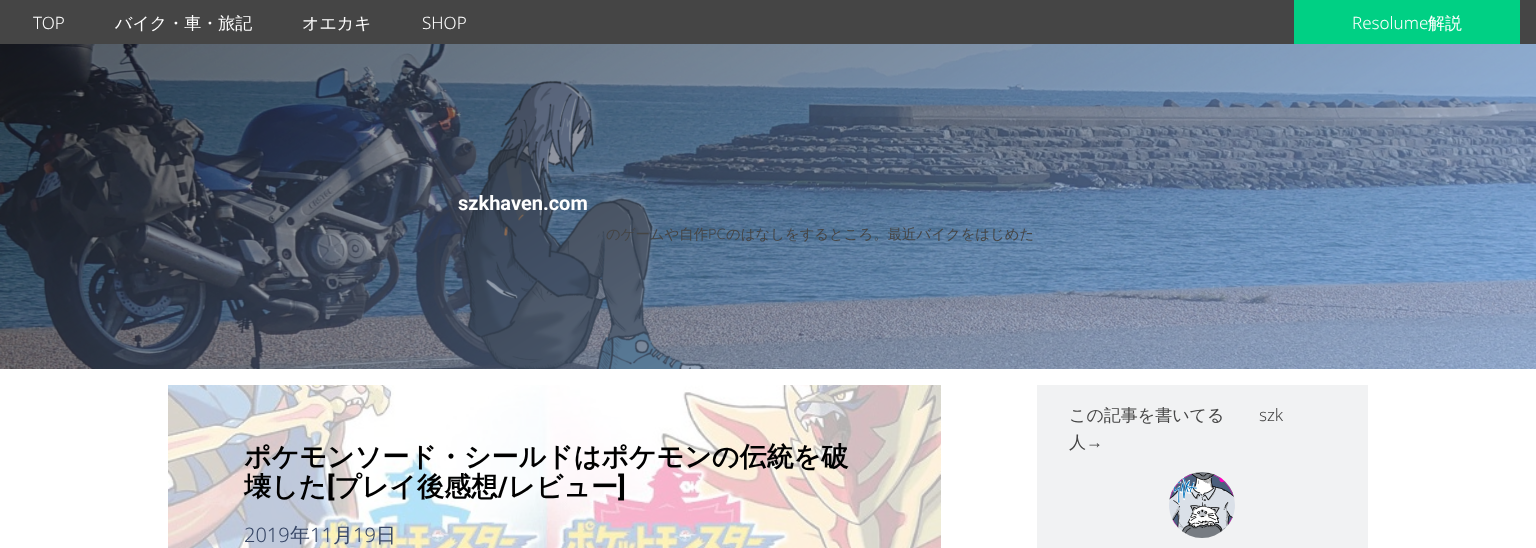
(async () => {
    const canvas = document.querySelector("canvas");
    canvas.width = 1536;
    canvas.height = 548;
    const context = canvas.getContext("2d");
    context.miterLimit = 4;
    context.fontKerning = "normal";
    function write(s, x, y, font, color) {
        context.font = font;
        context.fillStyle = color;
        context.fillText(s, x, y);
    }
    function block(x, y, w, h, color) {
        context.fillStyle = color;
        context.fillRect(x, y, w, h);
    }
    async function photo(src, x, y, w, h) {
        const img = new Image();
        img.src = src;
        await img.decode();
        context.drawImage(img, x, y, w, h);
    }

    block(0, 0, 1536, 548, "rgb(255, 255, 255)");
    block(0, 0, 1536, 44, "rgb(69, 69, 69)");
    write("TOP", 33, 29, "300 17px Noto Sans", "rgb(255, 255, 255)");
    write("バイク・車・旅記", 115, 29, "500 17px WenQuanYi Zen Hei", "rgb(255, 255, 255)");
    write("オエカキ", 302, 29, "500 17px WenQuanYi Zen Hei", "rgb(255, 255, 255)");
    write("SHOP", 422, 29, "300 17px Noto Sans", "rgb(255, 255, 255)");
    block(1294, 0, 226, 44, "rgb(0, 208, 132)");
    write("Resolume", 1352, 29, "300 17px Noto Sans", "rgb(255, 255, 255)");
    write("解説", 1428, 29, "500 17px WenQuanYi Zen Hei", "rgb(255, 255, 255)");
    await photo("media/1.png", 0, 44, 1536, 325);
    write("szkhaven.com", 458, 210, "bold 20px Roboto", "rgb(255, 255, 255)");
    write("のゲームや自作", 606, 239, "500 14.4px WenQuanYi Zen Hei", "rgb(69, 69, 69)");
    write("PC", 708, 239, "300 14.4px Noto Sans", "rgb(69, 69, 69)");
    write("のはなしをするところ。最近バイクをはじめた", 726, 239, "500 14.4px WenQuanYi Zen Hei", "rgb(69, 69, 69)");
    block(1037, 385, 331, 163, "rgb(241, 242, 243)");
    write("この記事を書いてる", 1069, 421, "500 17px WenQuanYi Zen Hei", "rgb(69, 69, 69)");
    write("人", 1069, 448, "500 17px WenQuanYi Zen Hei", "rgb(69, 69, 69)");
    write("→", 1086, 448, "17px Liberation Sans", "rgb(69, 69, 69)");
    write("szk", 1259, 421, "300 17px Noto Sans", "rgb(69, 69, 69)");
    await photo("media/2.png", 1169, 472, 66, 66);
    await photo("media/3.png", 168, 385, 773, 163);
    write("ポケモンソード・シールドはポケモンの伝統を破", 244, 466, "bold 27px WenQuanYi Zen Hei", "rgb(0, 0, 0)");
    write("壊した", 244, 496, "bold 27px WenQuanYi Zen Hei", "rgb(0, 0, 0)");
    write("[", 327, 496, "800 27px Roboto", "rgb(0, 0, 0)");
    write("プレイ後感想", 334, 496, "bold 27px WenQuanYi Zen Hei", "rgb(0, 0, 0)");
    write("/", 498, 496, "800 27px Roboto", "rgb(0, 0, 0)");
    write("レビュー", 508, 496, "bold 27px WenQuanYi Zen Hei", "rgb(0, 0, 0)");
    write("]", 618, 496, "800 27px Roboto", "rgb(0, 0, 0)");
    write("2019", 244, 542, "300 20px Noto Sans", "rgb(54, 69, 100)");
    write("年", 290, 542, "500 20px WenQuanYi Zen Hei", "rgb(54, 69, 100)");
    write("11", 310, 542, "300 20px Noto Sans", "rgb(54, 69, 100)");
    write("月", 333, 542, "500 20px WenQuanYi Zen Hei", "rgb(54, 69, 100)");
    write("19", 353, 542, "300 20px Noto Sans", "rgb(54, 69, 100)");
    write("日", 376, 542, "500 20px WenQuanYi Zen Hei", "rgb(54, 69, 100)");
})();
